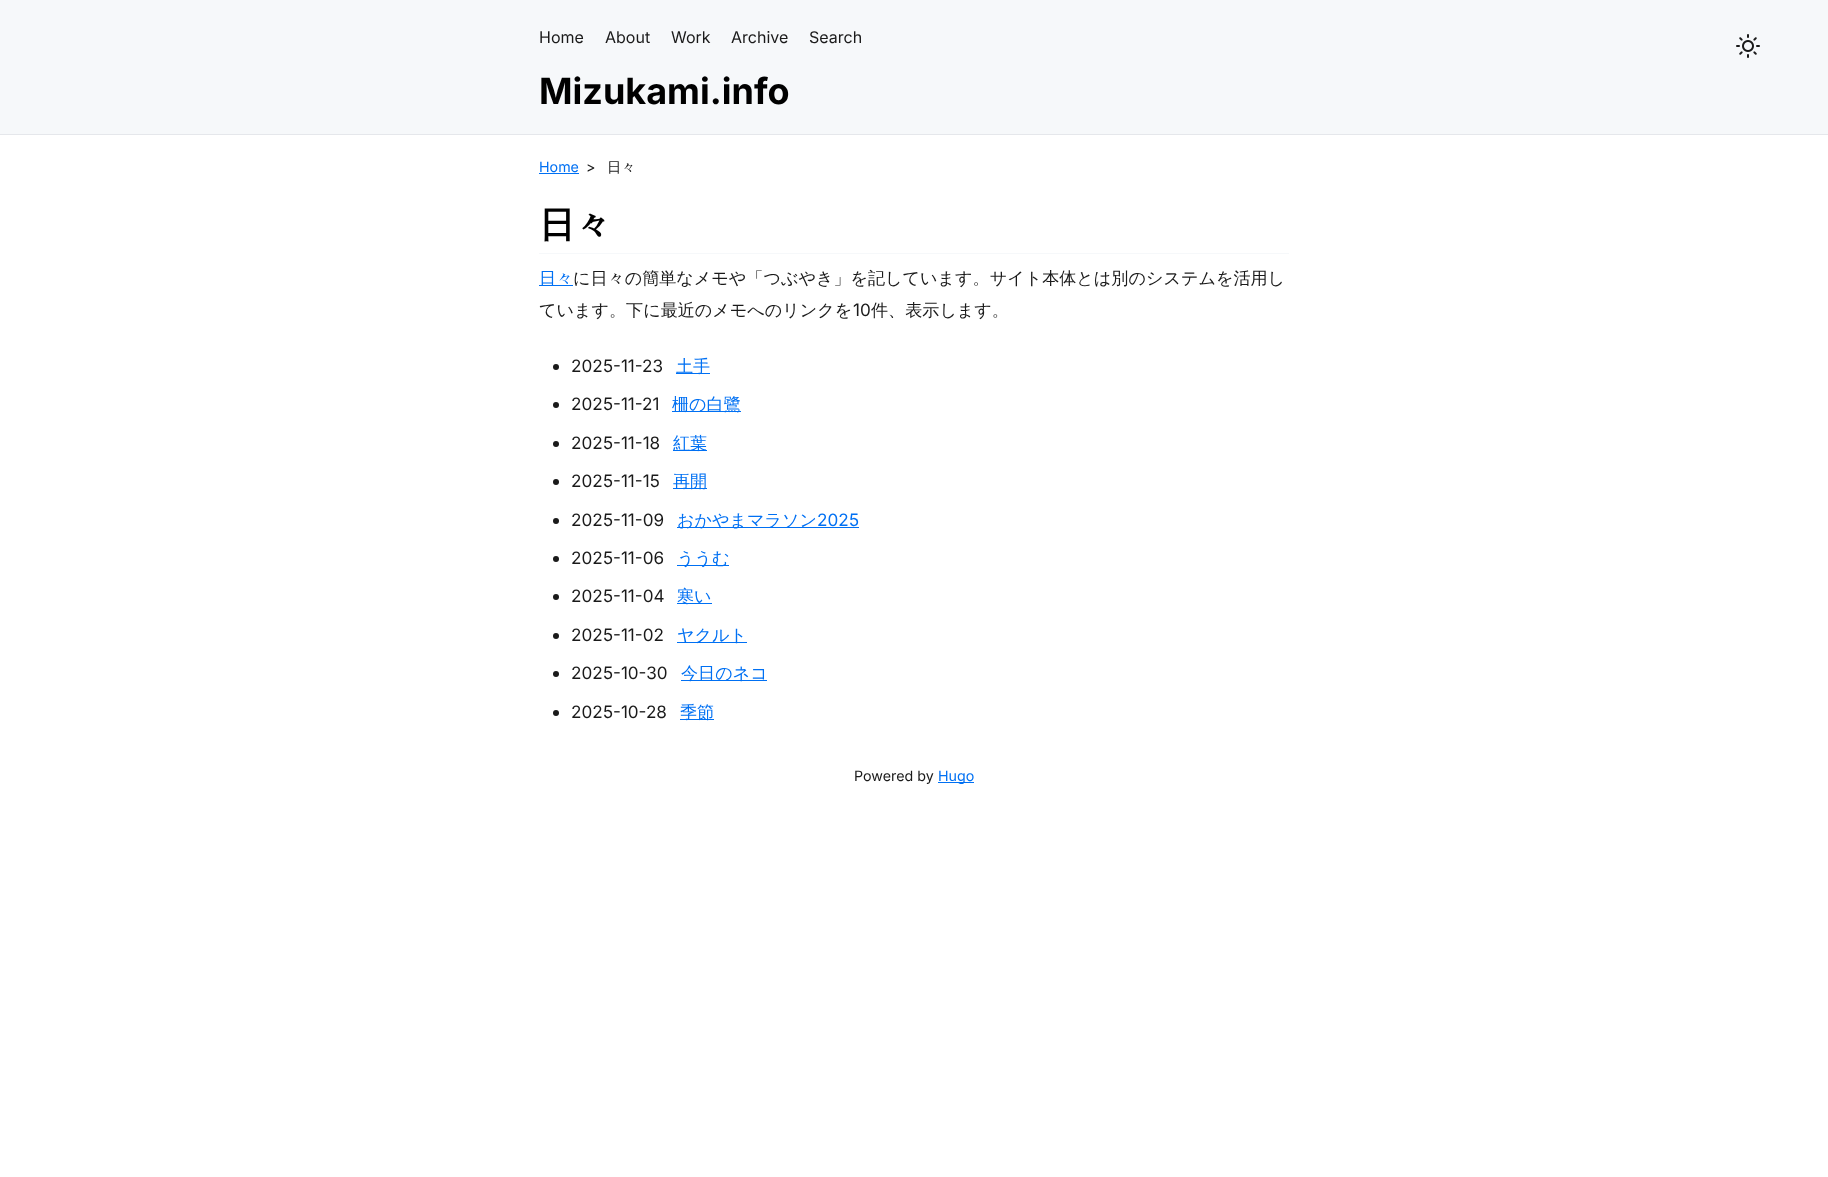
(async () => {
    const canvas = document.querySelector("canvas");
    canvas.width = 1828;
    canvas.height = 1177;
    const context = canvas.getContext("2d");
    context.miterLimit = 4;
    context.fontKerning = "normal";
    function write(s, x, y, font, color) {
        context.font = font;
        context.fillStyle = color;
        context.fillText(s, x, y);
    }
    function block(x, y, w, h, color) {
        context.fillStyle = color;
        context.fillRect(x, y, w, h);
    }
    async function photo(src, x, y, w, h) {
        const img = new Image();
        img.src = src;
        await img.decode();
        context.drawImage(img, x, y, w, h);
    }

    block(0, 0, 1828, 1177, "rgb(255, 255, 255)");
    block(0, 0, 1828, 134, "rgb(246, 248, 250)");
    block(0, 134, 1828, 1, "rgb(229, 231, 235)");
    write("Home", 539, 43, "16px Inter", "rgb(26, 26, 26)");
    write("About", 605, 43, "16px Inter", "rgb(26, 26, 26)");
    write("Work", 671, 43, "16px Inter", "rgb(26, 26, 26)");
    write("Archive", 731, 43, "16px Inter", "rgb(26, 26, 26)");
    write("Search", 809, 43, "16px Inter", "rgb(26, 26, 26)");
    await photo("media/1.png", 1736, 34, 24, 24);
    write("Mizukami.info", 539, 104, "bold 36px Inter", "rgb(0, 0, 0)");
    write("Home", 539, 172, "14.25px Inter", "rgb(0, 112, 243)");
    block(539, 173, 40, 1, "rgb(0, 112, 243)");
    write(">", 586, 172, "14.25px Inter", "rgb(26, 26, 26)");
    write("日々", 607, 172, "500 14.25px WenQuanYi Zen Hei", "rgb(26, 26, 26)");
    block(539, 253, 750, 1, "rgb(246, 248, 250)");
    write("日々", 539, 237, "bold 36px WenQuanYi Zen Hei", "rgb(0, 0, 0)");
    block(539, 285, 34, 1, "rgb(0, 112, 243)");
    write("日々", 539, 284, "500 17.1px WenQuanYi Zen Hei", "rgb(0, 112, 243)");
    write("に日々の簡単なメモや「つぶやき」を記しています。サイト本体とは別のシステムを活用し", 573, 284, "500 17.1px WenQuanYi Zen Hei", "rgb(26, 26, 26)");
    write("ています。下に最近のメモへのリンクを", 539, 316, "500 17.1px WenQuanYi Zen Hei", "rgb(26, 26, 26)");
    write("10", 853, 316, "17.1px Inter", "rgb(26, 26, 26)");
    write("件、表示します。", 871, 316, "500 17.1px WenQuanYi Zen Hei", "rgb(26, 26, 26)");
    context.beginPath();
    context.arc(556, 367, 3, 0, Math.PI * 2);
    context.fill();
    write("2025-11-23", 571, 372, "17.1px Inter", "rgb(26, 26, 26)");
    block(676, 373, 34, 1, "rgb(0, 112, 243)");
    write("土手", 676, 372, "500 17.1px WenQuanYi Zen Hei", "rgb(0, 112, 243)");
    context.fillStyle = "rgb(26, 26, 26)";
    context.beginPath();
    context.arc(556, 405, 3, 0, Math.PI * 2);
    context.fill();
    write("2025-11-21", 571, 410, "17.1px Inter", "rgb(26, 26, 26)");
    block(672, 411, 69, 1, "rgb(0, 112, 243)");
    write("柵の白鷺", 672, 410, "500 17.1px WenQuanYi Zen Hei", "rgb(0, 112, 243)");
    context.fillStyle = "rgb(26, 26, 26)";
    context.beginPath();
    context.arc(556, 444, 3, 0, Math.PI * 2);
    context.fill();
    write("2025-11-18", 571, 449, "17.1px Inter", "rgb(26, 26, 26)");
    block(673, 450, 34, 1, "rgb(0, 112, 243)");
    write("紅葉", 673, 449, "500 17.1px WenQuanYi Zen Hei", "rgb(0, 112, 243)");
    context.fillStyle = "rgb(26, 26, 26)";
    context.beginPath();
    context.arc(556, 482, 3, 0, Math.PI * 2);
    context.fill();
    write("2025-11-15", 571, 487, "17.1px Inter", "rgb(26, 26, 26)");
    block(673, 488, 34, 1, "rgb(0, 112, 243)");
    write("再開", 673, 487, "500 17.1px WenQuanYi Zen Hei", "rgb(0, 112, 243)");
    context.fillStyle = "rgb(26, 26, 26)";
    context.beginPath();
    context.arc(556, 521, 3, 0, Math.PI * 2);
    context.fill();
    write("2025-11-09", 571, 526, "17.1px Inter", "rgb(26, 26, 26)");
    block(677, 527, 182, 1, "rgb(0, 112, 243)");
    write("おかやまマラソン", 677, 526, "500 17.1px WenQuanYi Zen Hei", "rgb(0, 112, 243)");
    write("2025", 817, 526, "17.1px Inter", "rgb(0, 112, 243)");
    context.fillStyle = "rgb(26, 26, 26)";
    context.beginPath();
    context.arc(556, 559, 3, 0, Math.PI * 2);
    context.fill();
    write("2025-11-06", 571, 564, "17.1px Inter", "rgb(26, 26, 26)");
    block(677, 565, 52, 1, "rgb(0, 112, 243)");
    write("ううむ", 677, 564, "500 17.1px WenQuanYi Zen Hei", "rgb(0, 112, 243)");
    context.fillStyle = "rgb(26, 26, 26)";
    context.beginPath();
    context.arc(556, 597, 3, 0, Math.PI * 2);
    context.fill();
    write("2025-11-04", 571, 602, "17.1px Inter", "rgb(26, 26, 26)");
    block(677, 603, 35, 1, "rgb(0, 112, 243)");
    write("寒い", 677, 602, "500 17.1px WenQuanYi Zen Hei", "rgb(0, 112, 243)");
    context.fillStyle = "rgb(26, 26, 26)";
    context.beginPath();
    context.arc(556, 636, 3, 0, Math.PI * 2);
    context.fill();
    write("2025-11-02", 571, 641, "17.1px Inter", "rgb(26, 26, 26)");
    block(677, 642, 70, 1, "rgb(0, 112, 243)");
    write("ヤクルト", 677, 641, "500 17.1px WenQuanYi Zen Hei", "rgb(0, 112, 243)");
    context.fillStyle = "rgb(26, 26, 26)";
    context.beginPath();
    context.arc(556, 674, 3, 0, Math.PI * 2);
    context.fill();
    write("2025-10-30", 571, 679, "17.1px Inter", "rgb(26, 26, 26)");
    block(681, 680, 86, 1, "rgb(0, 112, 243)");
    write("今日のネコ", 681, 679, "500 17.1px WenQuanYi Zen Hei", "rgb(0, 112, 243)");
    context.fillStyle = "rgb(26, 26, 26)";
    context.beginPath();
    context.arc(556, 713, 3, 0, Math.PI * 2);
    context.fill();
    write("2025-10-28", 571, 718, "17.1px Inter", "rgb(26, 26, 26)");
    block(680, 719, 34, 1, "rgb(0, 112, 243)");
    write("季節", 680, 718, "500 17.1px WenQuanYi Zen Hei", "rgb(0, 112, 243)");
    write("Powered by", 854, 781, "14.25px Inter", "rgb(26, 26, 26)");
    block(938, 782, 36, 1, "rgb(0, 112, 243)");
    write("Hugo", 938, 781, "14.25px Inter", "rgb(0, 112, 243)");
})();
